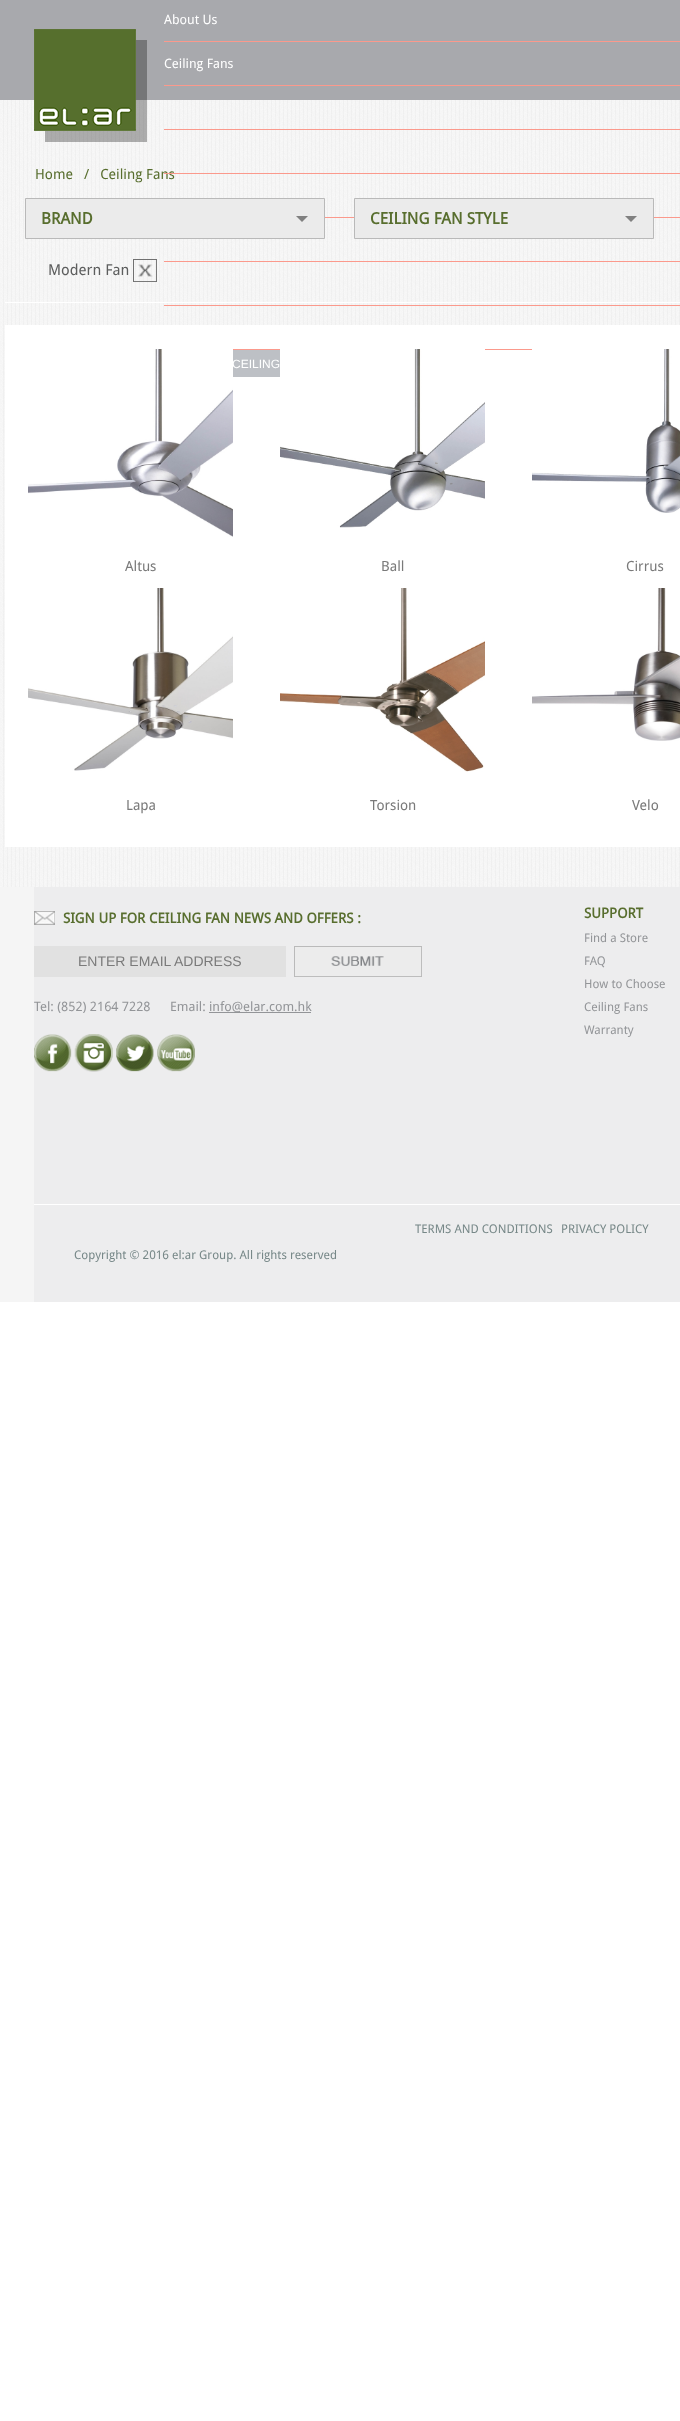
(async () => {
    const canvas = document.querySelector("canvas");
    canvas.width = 680;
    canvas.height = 2421;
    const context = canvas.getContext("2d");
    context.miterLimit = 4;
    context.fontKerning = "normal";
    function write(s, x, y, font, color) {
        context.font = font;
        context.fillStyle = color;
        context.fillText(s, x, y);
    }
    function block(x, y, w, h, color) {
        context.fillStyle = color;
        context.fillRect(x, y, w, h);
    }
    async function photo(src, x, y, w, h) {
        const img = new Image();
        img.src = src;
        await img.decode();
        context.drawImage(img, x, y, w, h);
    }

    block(0, 0, 680, 2421, "rgb(255, 255, 255)");
    block(0, 0, 680, 100, "rgb(168, 169, 173)");
    await photo("media/2.png", 0, 100, 680, 787);
    context.fillStyle = "rgba(0, 0, 0, 0.3)";
    context.beginPath();
    context.moveTo(45, 131);
    context.lineTo(45, 142);
    context.lineTo(147, 142);
    context.lineTo(147, 40);
    context.lineTo(136, 40);
    context.lineTo(136, 131);
    context.closePath();
    context.fill();
    await photo("media/1.png", 34, 29, 102, 102);
    block(164, 41, 516, 1, "rgb(251, 153, 140)");
    write("About Us", 164, 24, "13px Droid Sans", "rgb(255, 255, 255)");
    block(164, 85, 516, 1, "rgb(251, 153, 140)");
    write("Ceiling Fans", 164, 68, "13px Droid Sans", "rgb(255, 255, 255)");
    block(164, 129, 516, 1, "rgb(251, 153, 140)");
    write("/   Ceiling Fans", 84, 179, "14px Droid Sans", "rgb(88, 110, 46)");
    block(164, 173, 516, 1, "rgb(251, 153, 140)");
    block(325, 217, 355, 1, "rgb(251, 153, 140)");
    block(164, 261, 516, 1, "rgb(251, 153, 140)");
    block(164, 305, 516, 1, "rgb(251, 153, 140)");
    block(5, 325, 675, 522, "rgb(255, 255, 255)");
    block(233, 349, 299, 1, "rgb(251, 153, 140)");
    block(233, 350, 47, 27, "rgb(189, 192, 197)");
    write("CEILING", 232, 368, "12px Liberation Sans", "rgb(255, 255, 255)");
    write("Home", 35, 179, "14px Droid Sans", "rgb(88, 110, 46)");
    context.fillStyle = "rgb(235, 235, 235)";
    context.beginPath();
    context.rect(25.5, 198.5, 299, 40);
    context.fill();
    context.strokeStyle = "rgb(185, 185, 185)";
    context.stroke();
    write("BRAND", 41, 224, "bold 16px Droid Sans", "rgb(88, 110, 46)");
    context.fillStyle = "rgb(128, 128, 128)";
    context.beginPath();
    context.moveTo(296, 216);
    context.lineTo(308, 216);
    context.lineTo(302, 222);
    context.closePath();
    context.fill();
    context.fillStyle = "rgb(235, 235, 235)";
    context.beginPath();
    context.rect(354.5, 198.5, 299, 40);
    context.fill();
    context.stroke();
    write("CEILING FAN STYLE", 370, 224, "bold 16px Droid Sans", "rgb(88, 110, 46)");
    context.fillStyle = "rgb(128, 128, 128)";
    context.beginPath();
    context.moveTo(625, 216);
    context.lineTo(637, 216);
    context.lineTo(631, 222);
    context.closePath();
    context.fill();
    write("Modern Fan", 48, 275, "15px Droid Sans", "rgb(93, 94, 94)");
    await photo("media/3.png", 133, 259, 24, 23);
    block(5, 302, 675, 1, "rgb(255, 255, 255)");
    await photo("media/4.png", 28, 349, 205, 188);
    write("Altus", 125, 571, "14px Droid Sans", "rgb(122, 122, 122)");
    await photo("media/5.png", 280, 349, 205, 179);
    write("Ball", 381, 571, "14px Droid Sans", "rgb(122, 122, 122)");
    await photo("media/6.png", 532, 349, 148, 164);
    write("Cirrus", 626, 571, "14px Droid Sans", "rgb(122, 122, 122)");
    await photo("media/7.png", 28, 588, 205, 183);
    write("Lapa", 126, 810, "14px Droid Sans", "rgb(122, 122, 122)");
    await photo("media/8.png", 280, 588, 205, 184);
    write("Torsion", 370, 810, "14px Droid Sans", "rgb(122, 122, 122)");
    await photo("media/9.png", 532, 588, 148, 153);
    write("Velo", 632, 810, "14px Droid Sans", "rgb(122, 122, 122)");
    block(0, 887, 34, 415, "rgb(245, 245, 245)");
    block(34, 887, 646, 415, "rgb(237, 237, 238)");
    await photo("media/10.png", 34, 911, 21, 14);
    write("SIGN UP FOR CEILING FAN NEWS AND OFFERS :", 63, 923, "bold 14px Droid Sans", "rgb(88, 110, 46)");
    block(34, 946, 252, 31, "rgb(225, 225, 225)");
    write("ENTER EMAIL ADDRESS", 78, 966, "14px Liberation Sans", "rgb(122, 122, 122)");
    await photo("media/11.png", 294, 946, 128, 31);
    write("Tel: (852) 2164 7228", 34, 1011, "13px Droid Sans", "rgb(147, 149, 152)");
    write("Email:", 170, 1011, "13px Droid Sans", "rgb(147, 149, 152)");
    block(209, 1012, 102, 1, "rgb(147, 149, 152)");
    write("info@elar.com.hk", 209, 1011, "13px Droid Sans", "rgb(147, 149, 152)");
    await photo("media/12.png", 34, 1034, 161, 38);
    write("SUPPORT", 584, 918, "bold 14px Droid Sans", "rgb(88, 110, 46)");
    write("Find a Store", 584, 942, "12px Droid Sans", "rgb(147, 149, 152)");
    write("FAQ", 584, 965, "12px Droid Sans", "rgb(147, 149, 152)");
    write("How to Choose", 584, 988, "12px Droid Sans", "rgb(147, 149, 152)");
    write("Ceiling Fans", 584, 1011, "12px Droid Sans", "rgb(147, 149, 152)");
    write("Warranty", 584, 1034, "12px Droid Sans", "rgb(147, 149, 152)");
    block(34, 1204, 646, 1, "rgb(255, 255, 255)");
    write("TERMS AND CONDITIONS", 415, 1233, "12px Droid Sans", "rgb(119, 136, 136)");
    write("PRIVACY POLICY", 561, 1233, "12px Droid Sans", "rgb(119, 136, 136)");
    write("Copyright © 2016 el:ar Group. All rights reserved", 74, 1259, "12px Droid Sans", "rgb(119, 136, 136)");
})();
